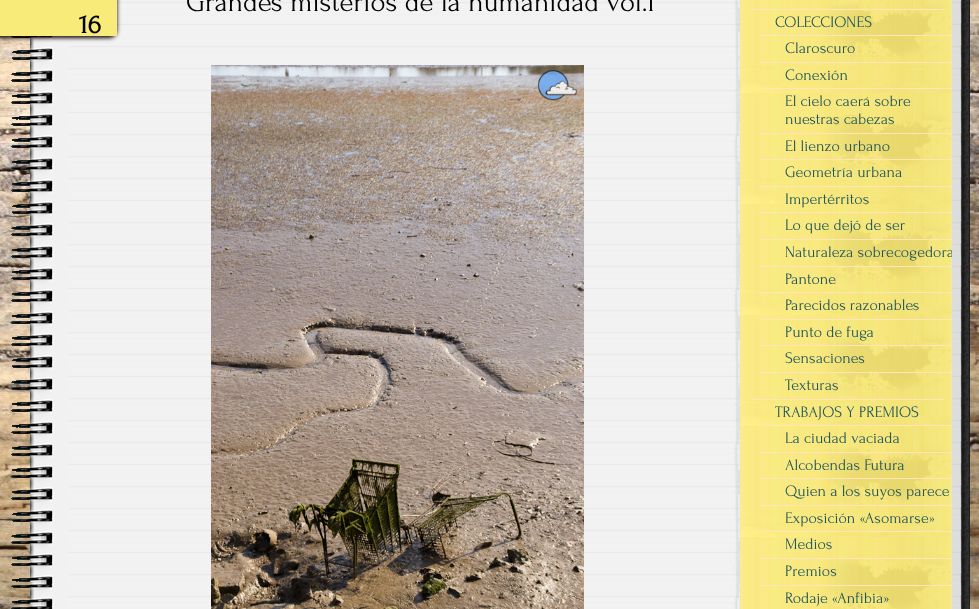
(async () => {
    const canvas = document.querySelector("canvas");
    canvas.width = 979;
    canvas.height = 609;
    const context = canvas.getContext("2d");
    context.miterLimit = 4;
    context.fontKerning = "normal";
    function write(s, x, y, font, color) {
        context.font = font;
        context.fillStyle = color;
        context.fillText(s, x, y);
    }
    function block(x, y, w, h, color) {
        context.fillStyle = color;
        context.fillRect(x, y, w, h);
    }
    async function photo(src, x, y, w, h) {
        const img = new Image();
        img.src = src;
        await img.decode();
        context.drawImage(img, x, y, w, h);
    }

    block(0, 0, 979, 609, "rgb(255, 255, 255)");
    await photo("media/1.png", 0, 0, 979, 609);
    await photo("media/2.png", 10, 0, 960, 609);
    write("Grandes misterios de la humanidad vol.I", 186, 11, "28.75px Forum", "rgb(0, 0, 0)");
    context.fillStyle = "rgb(17, 3, 3)";
    context.filter = "blur(2px)";
    context.beginPath();
    context.roundRect(-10, -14, 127, 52, 8);
    context.fill();
    context.filter = "none";
    context.fillStyle = "rgb(248, 235, 122)";
    context.beginPath();
    context.moveTo(0, -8);
    context.lineTo(116, -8);
    context.bezierCurveTo(116.5, -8, 117, -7.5, 117, -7);
    context.lineTo(117, 35);
    context.bezierCurveTo(117, 35.5, 116.5, 36, 116, 36);
    context.lineTo(-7, 36);
    context.bezierCurveTo(-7.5, 36, -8, 35.5, -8, 35);
    context.lineTo(-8, 0);
    context.bezierCurveTo(-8, -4.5, -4.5, -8, 0, -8);
    context.closePath();
    context.fill();
    write("16", 79, 33, "bold 27px Forum", "rgb(0, 0, 0)");
    await photo("media/3.png", 211, 65, 373, 544);
    await photo("media/4.png", 740, 0, 212, 609);
    block(750, 9, 195, 1, "rgb(255, 229, 190)");
    write("COLECCIONES", 775, 27, "16px Forum", "rgb(33, 86, 94)");
    block(760, 35, 192, 1, "rgb(255, 229, 190)");
    write("Claroscuro", 785, 53, "16px Forum", "rgb(33, 86, 94)");
    block(760, 62, 192, 1, "rgb(255, 229, 190)");
    write("Conexión", 785, 80, "16px Forum", "rgb(33, 86, 94)");
    block(760, 88, 192, 1, "rgb(255, 229, 190)");
    write("El cielo caerá sobre", 785, 106, "16px Forum", "rgb(33, 86, 94)");
    write("nuestras cabezas", 785, 124, "16px Forum", "rgb(33, 86, 94)");
    block(760, 133, 192, 1, "rgb(255, 229, 190)");
    write("El lienzo urbano", 785, 151, "16px Forum", "rgb(33, 86, 94)");
    block(760, 159, 192, 1, "rgb(255, 229, 190)");
    write("Geometría urbana", 785, 177, "16px Forum", "rgb(33, 86, 94)");
    block(760, 186, 192, 1, "rgb(255, 229, 190)");
    write("Impertérritos", 785, 204, "16px Forum", "rgb(33, 86, 94)");
    block(760, 212, 192, 1, "rgb(255, 229, 190)");
    write("Lo que dejó de ser", 785, 230, "16px Forum", "rgb(33, 86, 94)");
    block(760, 239, 192, 1, "rgb(255, 229, 190)");
    context.save();
    context.beginPath();
    context.rect(740, 35, 212, 364);
    context.clip();
    write("Naturaleza sobrecogedora", 785, 257, "16px Forum", "rgb(33, 86, 94)");
    context.restore();
    block(760, 266, 192, 1, "rgb(255, 229, 190)");
    write("Pantone", 785, 284, "16px Forum", "rgb(33, 86, 94)");
    block(760, 292, 192, 1, "rgb(255, 229, 190)");
    write("Parecidos razonables", 785, 310, "16px Forum", "rgb(33, 86, 94)");
    block(760, 319, 192, 1, "rgb(255, 229, 190)");
    write("Punto de fuga", 785, 337, "16px Forum", "rgb(33, 86, 94)");
    block(760, 345, 192, 1, "rgb(255, 229, 190)");
    write("Sensaciones", 785, 363, "16px Forum", "rgb(33, 86, 94)");
    block(760, 372, 192, 1, "rgb(255, 229, 190)");
    write("Texturas", 785, 390, "16px Forum", "rgb(33, 86, 94)");
    block(750, 399, 195, 1, "rgb(255, 229, 190)");
    write("TRABAJOS Y PREMIOS", 775, 417, "16px Forum", "rgb(33, 86, 94)");
    block(760, 425, 192, 1, "rgb(255, 229, 190)");
    write("La ciudad vaciada", 785, 443, "16px Forum", "rgb(33, 86, 94)");
    block(760, 452, 192, 1, "rgb(255, 229, 190)");
    write("Alcobendas Futura", 785, 470, "16px Forum", "rgb(33, 86, 94)");
    block(760, 478, 192, 1, "rgb(255, 229, 190)");
    write("Quien a los suyos parece", 785, 496, "16px Forum", "rgb(33, 86, 94)");
    block(760, 505, 192, 1, "rgb(255, 229, 190)");
    write("Exposición «Asomarse»", 785, 523, "16px Forum", "rgb(33, 86, 94)");
    block(760, 531, 192, 1, "rgb(255, 229, 190)");
    write("Medios", 785, 549, "16px Forum", "rgb(33, 86, 94)");
    block(760, 558, 192, 1, "rgb(255, 229, 190)");
    write("Premios", 785, 576, "16px Forum", "rgb(33, 86, 94)");
    block(760, 585, 192, 1, "rgb(255, 229, 190)");
    write("Rodaje «Anfibia»", 785, 603, "16px Forum", "rgb(33, 86, 94)");
})();
